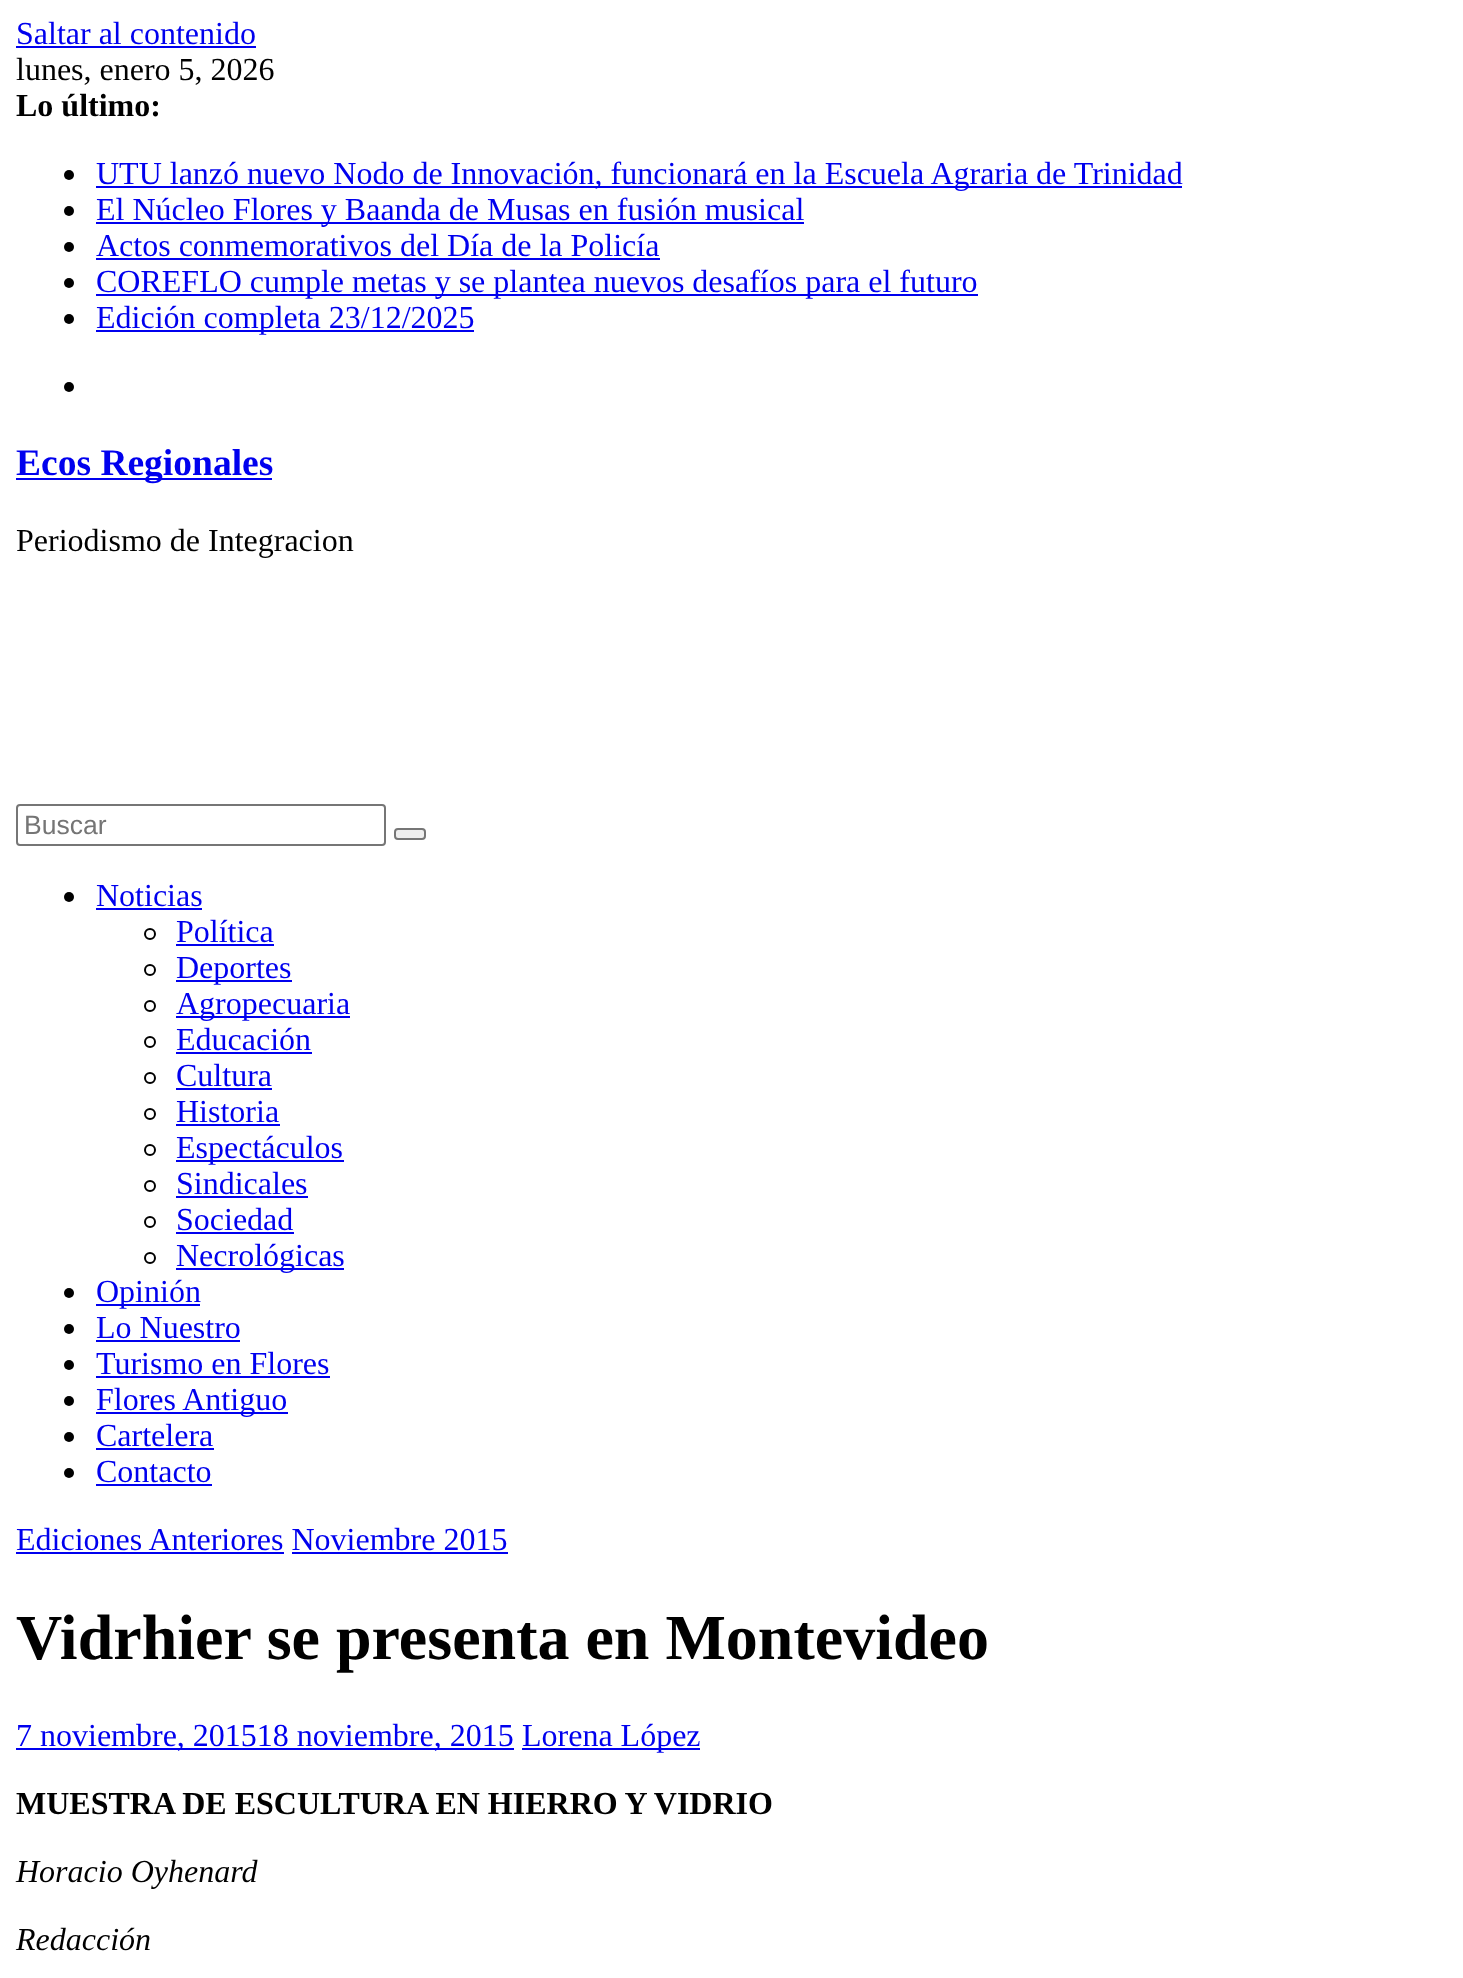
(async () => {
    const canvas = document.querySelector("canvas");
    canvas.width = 1463;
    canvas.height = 1978;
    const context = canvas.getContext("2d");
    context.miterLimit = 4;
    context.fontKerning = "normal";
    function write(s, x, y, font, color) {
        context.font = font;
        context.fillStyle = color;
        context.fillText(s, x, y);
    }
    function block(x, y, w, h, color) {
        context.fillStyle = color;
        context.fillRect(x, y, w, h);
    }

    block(0, 0, 1463, 1978, "rgb(255, 255, 255)");
    write("Saltar al contenido", 16, 44, "32px Liberation Serif", "rgb(0, 0, 238)");
    block(16, 46, 240, 2, "rgb(0, 0, 238)");
    write("lunes, enero 5, 2026", 16, 80, "32px Liberation Serif", "rgb(0, 0, 0)");
    write("Lo último:", 16, 116, "bold 32px Liberation Serif", "rgb(0, 0, 0)");
    context.beginPath();
    context.arc(69, 175, 5, 0, Math.PI * 2);
    context.fill();
    block(96, 186, 1086, 2, "rgb(0, 0, 238)");
    write("UTU lanzó nuevo Nodo de Innovación, funcionará en la Escuela Agraria de Trinidad", 96, 184, "32px Liberation Serif", "rgb(0, 0, 238)");
    context.fillStyle = "rgb(0, 0, 0)";
    context.beginPath();
    context.arc(69, 211, 5, 0, Math.PI * 2);
    context.fill();
    block(96, 222, 708, 2, "rgb(0, 0, 238)");
    write("El Núcleo Flores y Baanda de Musas en fusión musical", 96, 220, "32px Liberation Serif", "rgb(0, 0, 238)");
    context.fillStyle = "rgb(0, 0, 0)";
    context.beginPath();
    context.arc(69, 247, 5, 0, Math.PI * 2);
    context.fill();
    write("Actos conmemorativos del Día de la Policía", 96, 256, "32px Liberation Serif", "rgb(0, 0, 238)");
    block(96, 258, 564, 2, "rgb(0, 0, 238)");
    context.fillStyle = "rgb(0, 0, 0)";
    context.beginPath();
    context.arc(69, 283, 5, 0, Math.PI * 2);
    context.fill();
    block(96, 294, 882, 2, "rgb(0, 0, 238)");
    write("COREFLO cumple metas y se plantea nuevos desafíos para el futuro", 96, 292, "32px Liberation Serif", "rgb(0, 0, 238)");
    context.fillStyle = "rgb(0, 0, 0)";
    context.beginPath();
    context.arc(69, 319, 5, 0, Math.PI * 2);
    context.fill();
    block(96, 330, 378, 2, "rgb(0, 0, 238)");
    write("Edición completa 23/12/2025", 96, 328, "32px Liberation Serif", "rgb(0, 0, 238)");
    context.fillStyle = "rgb(0, 0, 0)";
    context.beginPath();
    context.arc(69, 387, 5, 0, Math.PI * 2);
    context.fill();
    block(16, 478, 256, 2, "rgb(0, 0, 238)");
    write("Ecos Regionales", 16, 475, "bold 37.5px Liberation Serif", "rgb(0, 0, 238)");
    write("Periodismo de Integracion", 16, 551, "32px Liberation Serif", "rgb(0, 0, 0)");
    context.beginPath();
    context.roundRect(17, 805, 368, 40, 3);
    context.strokeStyle = "rgb(118, 118, 118)";
    context.lineWidth = 2;
    context.stroke();
    write("Buscar", 24, 834, "26.5px Liberation Sans", "rgb(117, 117, 117)");
    context.fillStyle = "rgb(239, 239, 239)";
    context.beginPath();
    context.roundRect(395, 829, 30, 10, 3);
    context.fill();
    context.stroke();
    context.fillStyle = "rgb(0, 0, 0)";
    context.beginPath();
    context.arc(69, 897, 5, 0, Math.PI * 2);
    context.fill();
    write("Noticias", 96, 906, "32px Liberation Serif", "rgb(0, 0, 238)");
    block(96, 908, 106, 2, "rgb(0, 0, 238)");
    context.beginPath();
    context.arc(150, 934, 5, 0, Math.PI * 2);
    context.strokeStyle = "rgb(0, 0, 0)";
    context.stroke();
    write("Política", 176, 942, "32px Liberation Serif", "rgb(0, 0, 238)");
    block(176, 944, 98, 2, "rgb(0, 0, 238)");
    context.beginPath();
    context.arc(150, 970, 5, 0, Math.PI * 2);
    context.stroke();
    block(176, 980, 116, 2, "rgb(0, 0, 238)");
    write("Deportes", 176, 978, "32px Liberation Serif", "rgb(0, 0, 238)");
    context.beginPath();
    context.arc(150, 1006, 5, 0, Math.PI * 2);
    context.stroke();
    block(176, 1016, 174, 2, "rgb(0, 0, 238)");
    write("Agropecuaria", 176, 1014, "32px Liberation Serif", "rgb(0, 0, 238)");
    context.beginPath();
    context.arc(150, 1042, 5, 0, Math.PI * 2);
    context.stroke();
    write("Educación", 176, 1050, "32px Liberation Serif", "rgb(0, 0, 238)");
    block(176, 1052, 136, 2, "rgb(0, 0, 238)");
    context.beginPath();
    context.arc(150, 1078, 5, 0, Math.PI * 2);
    context.stroke();
    write("Cultura", 176, 1086, "32px Liberation Serif", "rgb(0, 0, 238)");
    block(176, 1088, 96, 2, "rgb(0, 0, 238)");
    context.beginPath();
    context.arc(150, 1114, 5, 0, Math.PI * 2);
    context.stroke();
    write("Historia", 176, 1122, "32px Liberation Serif", "rgb(0, 0, 238)");
    block(176, 1124, 104, 2, "rgb(0, 0, 238)");
    context.beginPath();
    context.arc(150, 1150, 5, 0, Math.PI * 2);
    context.stroke();
    block(176, 1160, 168, 2, "rgb(0, 0, 238)");
    write("Espectáculos", 176, 1158, "32px Liberation Serif", "rgb(0, 0, 238)");
    context.beginPath();
    context.arc(150, 1186, 5, 0, Math.PI * 2);
    context.stroke();
    write("Sindicales", 176, 1194, "32px Liberation Serif", "rgb(0, 0, 238)");
    block(176, 1196, 132, 2, "rgb(0, 0, 238)");
    context.beginPath();
    context.arc(150, 1222, 5, 0, Math.PI * 2);
    context.stroke();
    write("Sociedad", 176, 1230, "32px Liberation Serif", "rgb(0, 0, 238)");
    block(176, 1232, 118, 2, "rgb(0, 0, 238)");
    context.beginPath();
    context.arc(150, 1258, 5, 0, Math.PI * 2);
    context.stroke();
    block(176, 1268, 168, 2, "rgb(0, 0, 238)");
    write("Necrológicas", 176, 1266, "32px Liberation Serif", "rgb(0, 0, 238)");
    context.fillStyle = "rgb(0, 0, 0)";
    context.beginPath();
    context.arc(69, 1293, 5, 0, Math.PI * 2);
    context.fill();
    block(96, 1304, 104, 2, "rgb(0, 0, 238)");
    write("Opinión", 96, 1302, "32px Liberation Serif", "rgb(0, 0, 238)");
    context.fillStyle = "rgb(0, 0, 0)";
    context.beginPath();
    context.arc(69, 1329, 5, 0, Math.PI * 2);
    context.fill();
    write("Lo Nuestro", 96, 1338, "32px Liberation Serif", "rgb(0, 0, 238)");
    block(96, 1340, 144, 2, "rgb(0, 0, 238)");
    context.fillStyle = "rgb(0, 0, 0)";
    context.beginPath();
    context.arc(69, 1365, 5, 0, Math.PI * 2);
    context.fill();
    write("Turismo en Flores", 96, 1374, "32px Liberation Serif", "rgb(0, 0, 238)");
    block(96, 1376, 234, 2, "rgb(0, 0, 238)");
    context.fillStyle = "rgb(0, 0, 0)";
    context.beginPath();
    context.arc(69, 1401, 5, 0, Math.PI * 2);
    context.fill();
    block(96, 1412, 192, 2, "rgb(0, 0, 238)");
    write("Flores Antiguo", 96, 1410, "32px Liberation Serif", "rgb(0, 0, 238)");
    context.fillStyle = "rgb(0, 0, 0)";
    context.beginPath();
    context.arc(69, 1437, 5, 0, Math.PI * 2);
    context.fill();
    write("Cartelera", 96, 1446, "32px Liberation Serif", "rgb(0, 0, 238)");
    block(96, 1448, 118, 2, "rgb(0, 0, 238)");
    context.fillStyle = "rgb(0, 0, 0)";
    context.beginPath();
    context.arc(69, 1473, 5, 0, Math.PI * 2);
    context.fill();
    write("Contacto", 96, 1482, "32px Liberation Serif", "rgb(0, 0, 238)");
    block(96, 1484, 116, 2, "rgb(0, 0, 238)");
    write("Ediciones Anteriores Noviembre 2015", 16, 1550, "32px Liberation Serif", "rgb(0, 0, 238)");
    block(16, 1552, 268, 2, "rgb(0, 0, 238)");
    block(292, 1552, 216, 2, "rgb(0, 0, 238)");
    write("Vidrhier se presenta en Montevideo", 16, 1659, "bold 64px Liberation Serif", "rgb(0, 0, 0)");
    block(16, 1748, 498, 2, "rgb(0, 0, 238)");
    write("7 noviembre, 201518 noviembre, 2015", 16, 1746, "32px Liberation Serif", "rgb(0, 0, 238)");
    block(522, 1748, 178, 2, "rgb(0, 0, 238)");
    write("Lorena López", 522, 1746, "32px Liberation Serif", "rgb(0, 0, 238)");
    write("MUESTRA DE ESCULTURA EN HIERRO Y VIDRIO", 16, 1814, "bold 32px Liberation Serif", "rgb(0, 0, 0)");
    write("Horacio Oyhenard", 16, 1882, "italic 32px Liberation Serif", "rgb(0, 0, 0)");
    write("Redacción", 16, 1950, "italic 32px Liberation Serif", "rgb(0, 0, 0)");
})();
